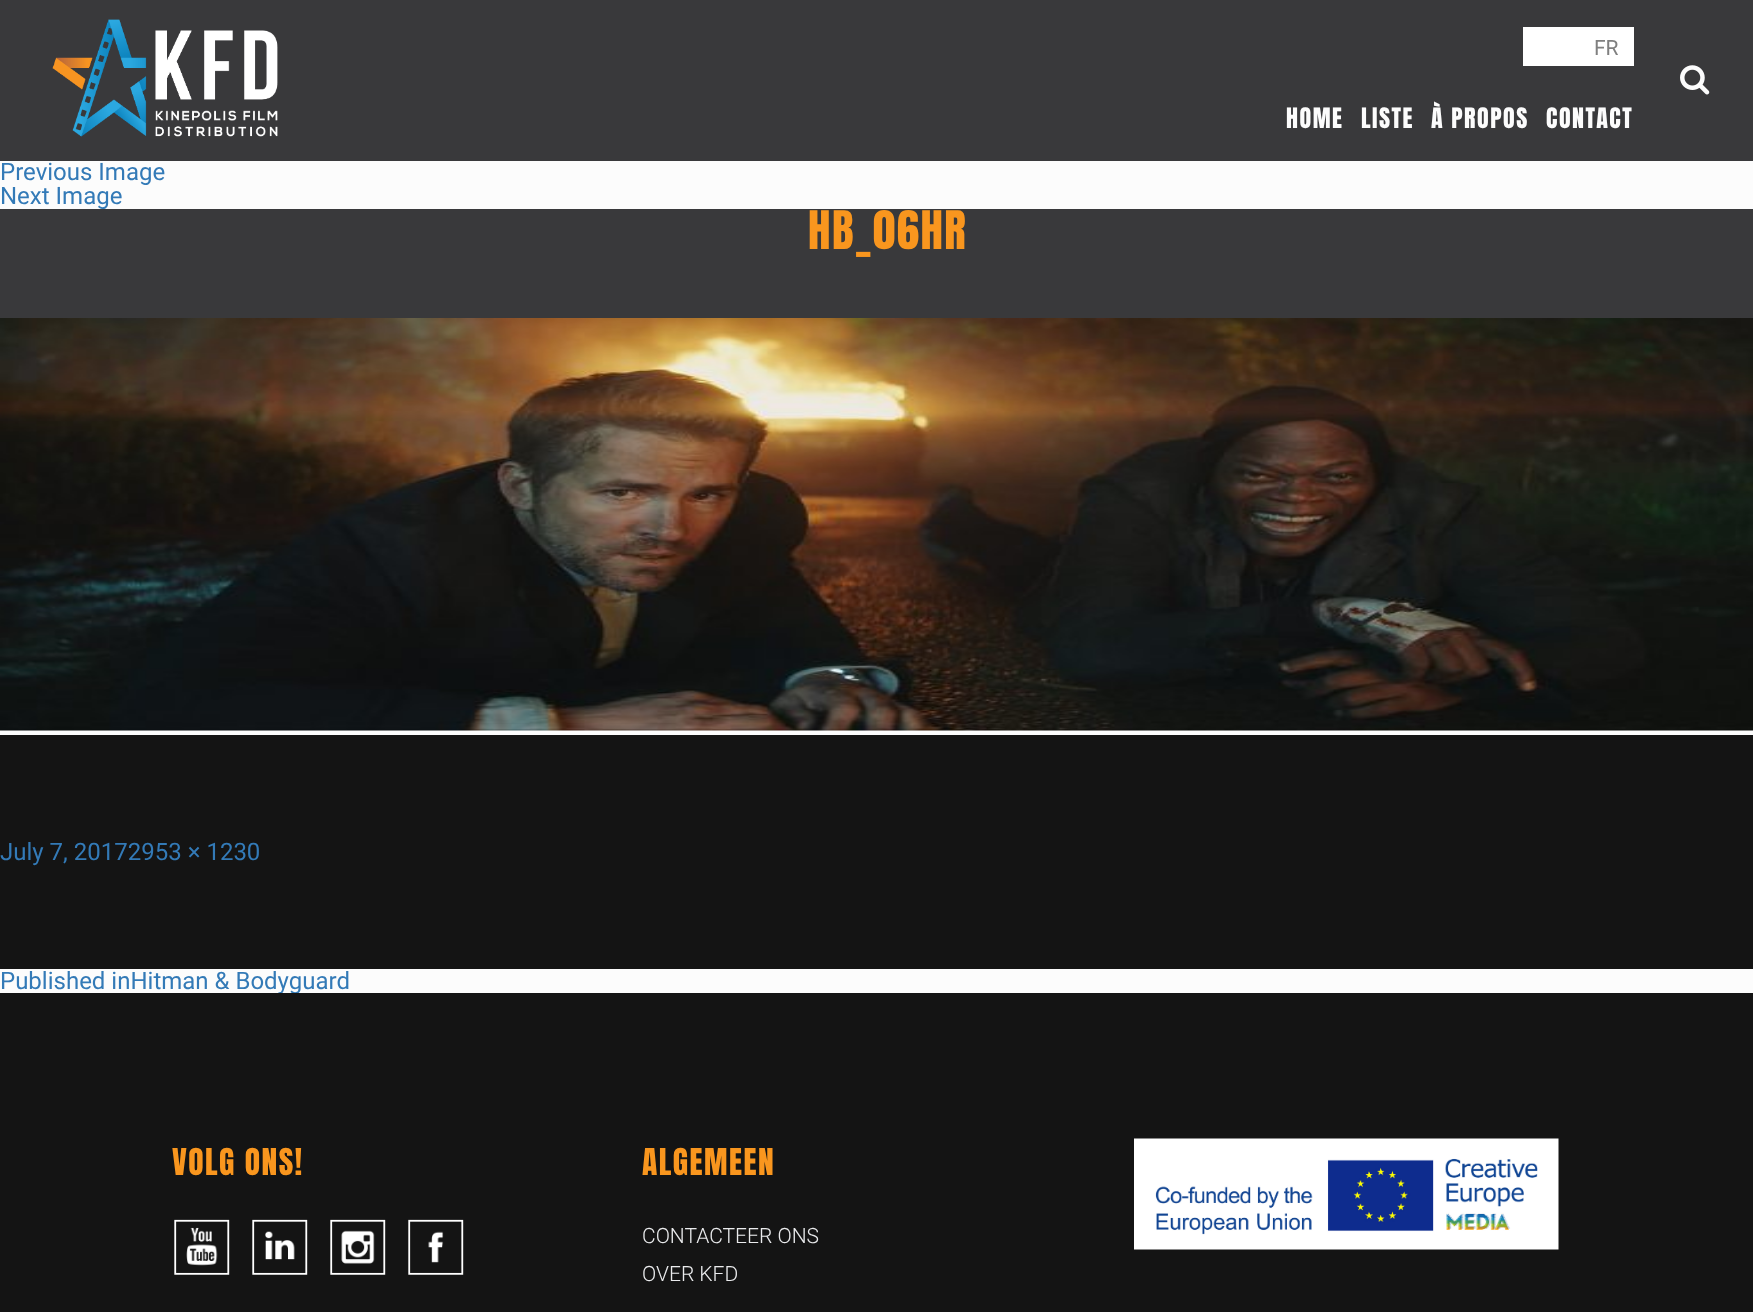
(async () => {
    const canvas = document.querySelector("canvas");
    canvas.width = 1753;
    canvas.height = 1312;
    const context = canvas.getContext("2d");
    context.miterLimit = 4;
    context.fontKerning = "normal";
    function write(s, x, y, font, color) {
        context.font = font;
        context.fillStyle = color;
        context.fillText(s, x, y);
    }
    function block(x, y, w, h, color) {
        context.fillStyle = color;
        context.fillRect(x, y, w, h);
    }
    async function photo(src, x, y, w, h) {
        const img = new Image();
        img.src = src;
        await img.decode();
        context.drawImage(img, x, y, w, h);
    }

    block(0, 0, 1753, 1312, "rgb(252, 252, 252)");
    block(0, 0, 1753, 161, "rgb(57, 57, 59)");
    await photo("media/1.png", 52, 19, 226, 118);
    block(1523, 27, 111, 39, "rgb(255, 255, 255)");
    write("FR", 1594, 55, "21px Roboto", "rgb(128, 128, 128)");
    await photo("media/2.png", 1680, 65, 30, 30);
    context.letterSpacing = "1.5px";
    write("HOME", 1286, 128, "24px Anton", "rgb(252, 252, 252)");
    write("LISTE", 1361, 128, "24px Anton", "rgb(252, 252, 252)");
    write("À PROPOS", 1431, 128, "24px Anton", "rgb(252, 252, 252)");
    write("CONTACT", 1546, 128, "24px Anton", "rgb(252, 252, 252)");
    context.letterSpacing = "0px";
    write("Previous Image", 0, 180, "24px Roboto", "rgb(51, 122, 183)");
    write("Next Image", 0, 204, "24px Roboto", "rgb(51, 122, 183)");
    block(0, 209, 1753, 109, "rgb(57, 57, 59)");
    context.letterSpacing = "1.5px";
    write("HB_06HR", 808, 249, "45px Anton", "rgb(249, 150, 30)");
    await photo("media/3.png", 0, 318, 1753, 413);
    block(0, 735, 1753, 234, "rgb(20, 20, 20)");
    context.letterSpacing = "0px";
    write("July 7, 20172953 × 1230", 0, 860, "24px Roboto", "rgb(51, 122, 183)");
    write("Published inHitman & Bodyguard", 0, 989, "24px Roboto", "rgb(51, 122, 183)");
    block(0, 993, 1753, 319, "rgb(20, 20, 20)");
    context.letterSpacing = "1.5px";
    write("VOLG ONS!", 172, 1175, "31.5px Anton", "rgb(249, 150, 30)");
    await photo("media/4.png", 174, 1219, 56, 56);
    await photo("media/5.png", 252, 1219, 56, 56);
    await photo("media/6.png", 330, 1219, 56, 56);
    await photo("media/7.png", 408, 1219, 56, 56);
    write("ALGEMEEN", 642, 1175, "31.5px Anton", "rgb(249, 150, 30)");
    context.letterSpacing = "0px";
    write("CONTACTEER ONS", 642, 1243, "300 21px Roboto", "rgb(234, 235, 237)");
    write("OVER KFD", 642, 1281, "300 21px Roboto", "rgb(234, 235, 237)");
    await photo("media/8.png", 1134, 1138, 425, 112);
})();
